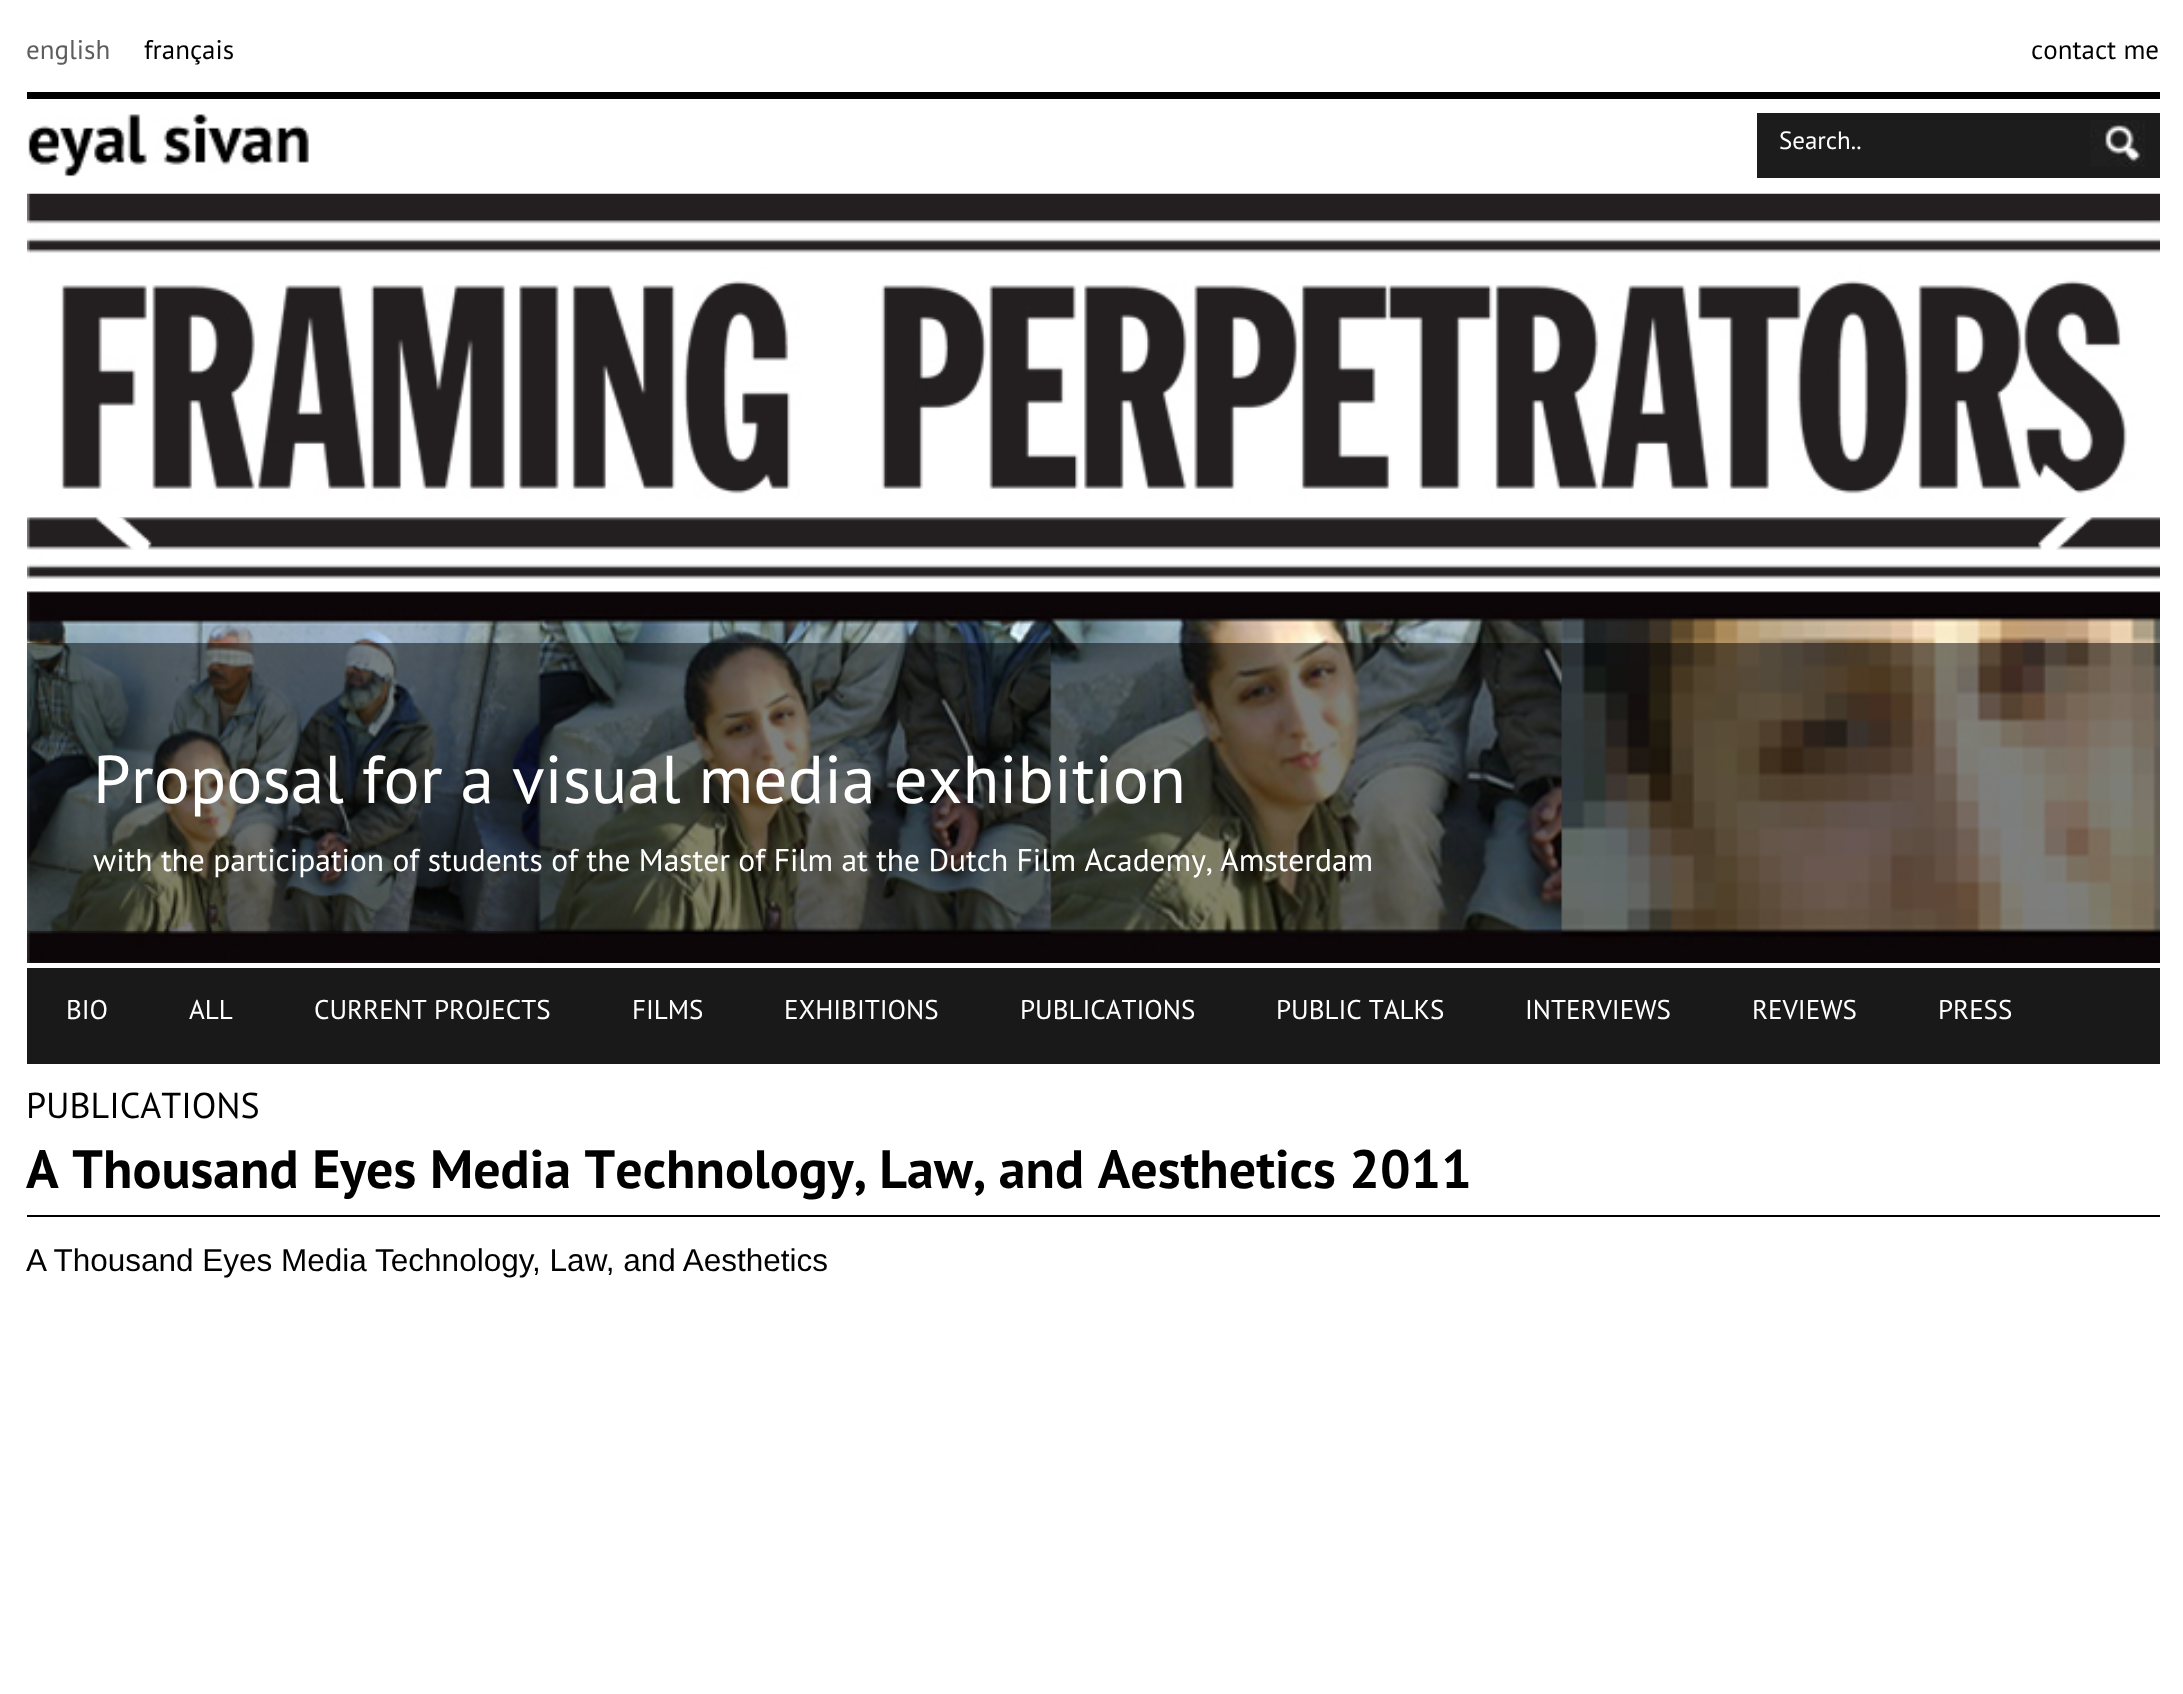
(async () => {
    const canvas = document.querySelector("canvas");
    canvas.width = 2183;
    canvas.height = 1694;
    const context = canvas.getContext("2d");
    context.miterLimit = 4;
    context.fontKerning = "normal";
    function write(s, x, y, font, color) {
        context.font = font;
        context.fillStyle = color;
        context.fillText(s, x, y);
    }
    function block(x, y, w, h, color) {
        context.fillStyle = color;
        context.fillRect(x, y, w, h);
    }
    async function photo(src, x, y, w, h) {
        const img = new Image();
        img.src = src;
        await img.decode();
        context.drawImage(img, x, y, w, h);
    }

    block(0, 0, 2183, 1694, "rgb(255, 255, 255)");
    write("english", 26, 59, "27px PT Sans", "rgb(94, 94, 94)");
    write("français", 144, 59, "27px PT Sans", "rgb(0, 0, 0)");
    write("contact me", 2031, 59, "27px PT Sans", "rgb(0, 0, 0)");
    block(27, 92, 2133, 7, "rgb(0, 0, 0)");
    await photo("media/1.png", 28, 114, 281, 63);
    block(1757, 113, 403, 65, "rgb(28, 28, 28)");
    write("Search..", 1779, 149, "25px PT Sans", "rgb(255, 255, 255)");
    await photo("media/2.png", 2090, 120, 55, 47);
    await photo("media/5.png", 27, 193, 2133, 770);
    await photo("media/3.png", 96, 517, 56, 33);
    await photo("media/4.png", 2038, 463, 55, 87);
    block(27, 643, 2133, 289, "rgba(0, 0, 0, 0.5)");
    write("Proposal for a visual media exhibition", 93, 803, "67.5px PT Sans", "rgb(255, 255, 255)");
    write("with the participation of students of the Master of Film at the Dutch Film Academy, Amsterdam", 93, 871, "31.5px PT Sans", "rgb(255, 255, 255)");
    block(27, 968, 2133, 96, "rgb(26, 25, 25)");
    write("BIO", 66, 1019, "27px PT Sans", "rgb(255, 255, 255)");
    write("ALL", 189, 1019, "27px PT Sans", "rgb(255, 255, 255)");
    write("CURRENT PROJECTS", 314, 1019, "27px PT Sans", "rgb(255, 255, 255)");
    write("FILMS", 632, 1019, "27px PT Sans", "rgb(255, 255, 255)");
    write("EXHIBITIONS", 784, 1019, "27px PT Sans", "rgb(255, 255, 255)");
    write("PUBLICATIONS", 1020, 1019, "27px PT Sans", "rgb(255, 255, 255)");
    write("PUBLIC TALKS", 1276, 1019, "27px PT Sans", "rgb(255, 255, 255)");
    write("INTERVIEWS", 1525, 1019, "27px PT Sans", "rgb(255, 255, 255)");
    write("REVIEWS", 1752, 1019, "27px PT Sans", "rgb(255, 255, 255)");
    write("PRESS", 1938, 1019, "27px PT Sans", "rgb(255, 255, 255)");
    write("PUBLICATIONS", 26, 1118, "36px PT Sans", "rgb(0, 0, 0)");
    block(27, 1215, 2133, 2, "rgb(0, 0, 0)");
    write("A Thousand Eyes Media Technology, Law, and Aesthetics 2011", 26, 1188, "bold 54px PT Sans", "rgb(0, 0, 0)");
    write("A Thousand Eyes Media Technology, Law, and Aesthetics", 26, 1271, "31.5px Liberation Sans", "rgb(0, 0, 0)");
})();
